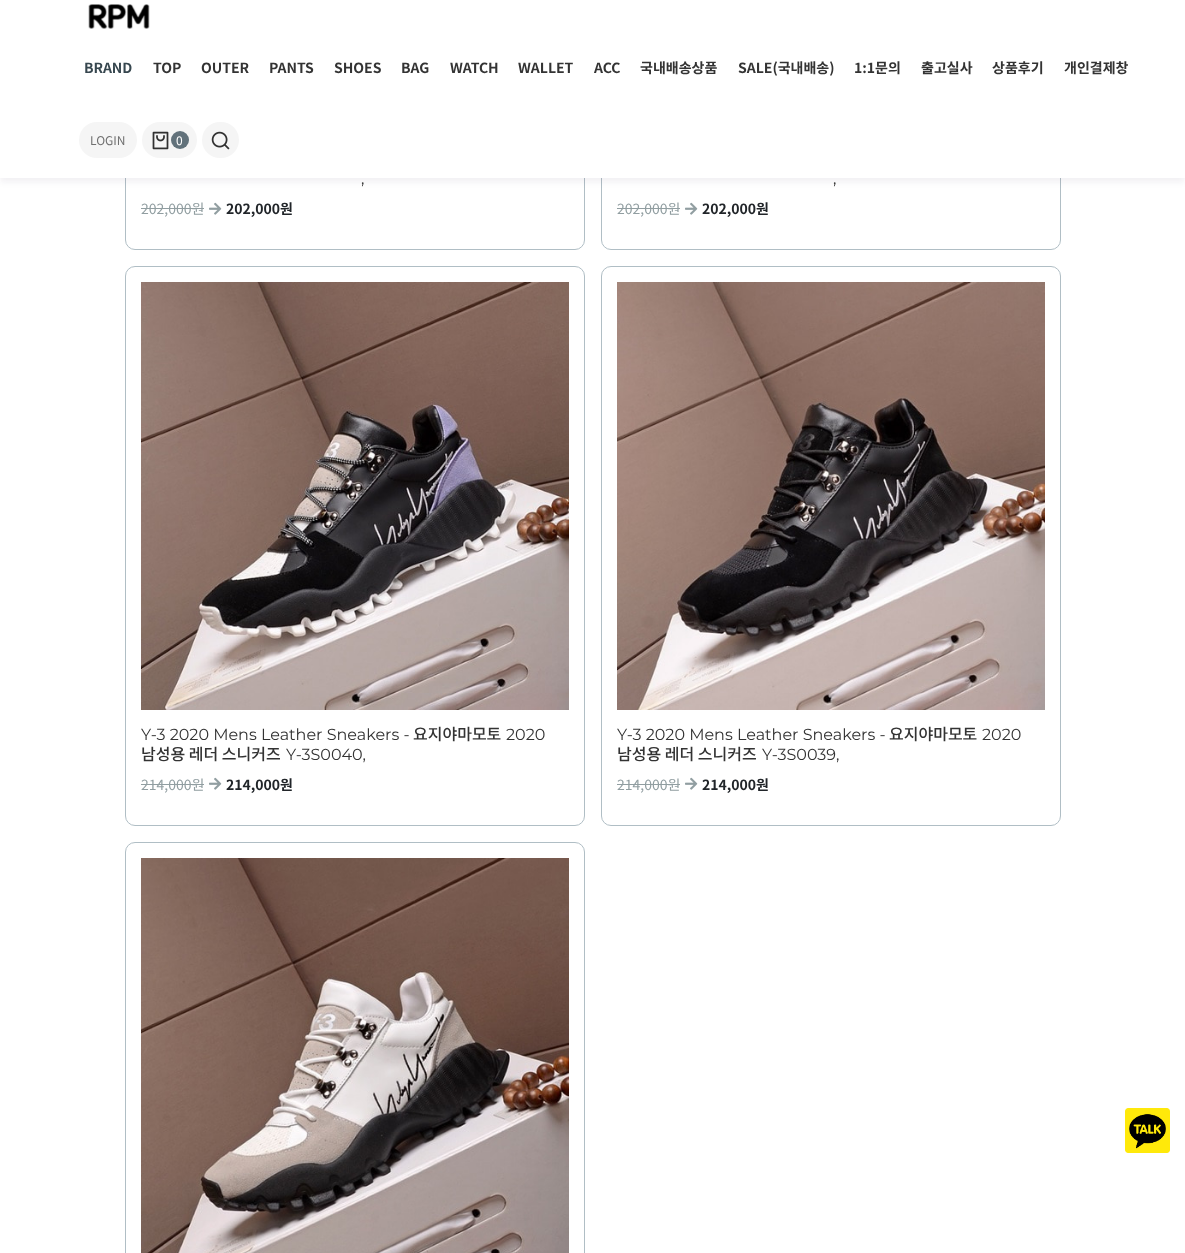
(async () => {
    const canvas = document.querySelector("canvas");
    canvas.width = 1185;
    canvas.height = 1253;
    const context = canvas.getContext("2d");
    context.miterLimit = 4;
    context.fontKerning = "normal";
    function write(s, x, y, font, color) {
        context.font = font;
        context.fillStyle = color;
        context.fillText(s, x, y);
    }
    function block(x, y, w, h, color) {
        context.fillStyle = color;
        context.fillRect(x, y, w, h);
    }
    function card(x, y, w, h, r, color) {
        context.fillStyle = color;
        context.beginPath();
        context.roundRect(x, y, w, h, r);
        context.fill();
    }
    async function photo(src, x, y, w, h) {
        const img = new Image();
        img.src = src;
        await img.decode();
        context.drawImage(img, x, y, w, h);
    }

    block(0, 0, 1185, 1253, "rgb(255, 255, 255)");
    context.beginPath();
    context.roundRect(125.5, -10.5, 459, 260, 9.5);
    context.strokeStyle = "rgb(176, 190, 197)";
    context.stroke();
    context.beginPath();
    context.roundRect(601.5, -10.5, 459, 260, 9.5);
    context.stroke();
    context.fillStyle = "rgba(12, 0, 46, 0.06)";
    context.filter = "blur(3px)";
    context.beginPath();
    context.rect(0, 4, 1185, 178);
    context.fill();
    context.filter = "none";
    block(0, 0, 1185, 178, "rgb(255, 255, 255)");
    await photo("media/1.png", 88, 4, 62, 25);
    write("BRAND", 84, 73, "bold 14px Noto Sans KR", "rgb(55, 71, 79)");
    write("TOP", 153, 73, "bold 14px Noto Sans KR", "rgb(51, 51, 51)");
    write("OUTER", 201, 73, "bold 14px Noto Sans KR", "rgb(51, 51, 51)");
    write("PANTS", 269, 73, "bold 14px Noto Sans KR", "rgb(51, 51, 51)");
    write("SHOES", 334, 73, "bold 14px Noto Sans KR", "rgb(51, 51, 51)");
    write("BAG", 401, 73, "bold 14px Noto Sans KR", "rgb(51, 51, 51)");
    write("WATCH", 450, 73, "bold 14px Noto Sans KR", "rgb(51, 51, 51)");
    write("WALLET", 518, 73, "bold 14px Noto Sans KR", "rgb(51, 51, 51)");
    write("ACC", 594, 73, "bold 14px Noto Sans KR", "rgb(51, 51, 51)");
    write("국내배송상품", 640, 73, "bold 14px Noto Sans KR", "rgb(51, 51, 51)");
    write("SALE(국내배송)", 738, 73, "bold 14px Noto Sans KR", "rgb(51, 51, 51)");
    write("1:1문의", 854, 73, "bold 14px Noto Sans KR", "rgb(51, 51, 51)");
    write("출고실사", 921, 73, "bold 14px Noto Sans KR", "rgb(51, 51, 51)");
    write("상품후기", 992, 73, "bold 14px Noto Sans KR", "rgb(51, 51, 51)");
    write("개인결제창", 1064, 73, "bold 14px Noto Sans KR", "rgb(51, 51, 51)");
    card(79, 122, 58, 36, 18, "rgb(245, 245, 245)");
    write("LOGIN", 90, 145, "12px Noto Sans KR", "rgb(112, 112, 112)");
    card(142, 122, 55, 36, 18, "rgb(245, 245, 245)");
    await photo("media/2.png", 152, 131, 17, 19);
    context.fillStyle = "rgb(98, 114, 123)";
    context.beginPath();
    context.arc(180, 140, 9, 0, Math.PI * 2);
    context.fill();
    write("0", 176, 145, "12px Noto Sans KR", "rgb(255, 255, 255)");
    card(202, 122, 37, 36, 18, "rgb(245, 245, 245)");
    await photo("media/3.png", 211, 131, 19, 19);
    write(",", 361, 184, "16px Montserrat", "rgb(51, 51, 51)");
    write("202,000원", 141, 214, "14px Noto Sans KR", "rgb(145, 158, 161)");
    block(141, 208, 63, 1, "rgb(145, 158, 161)");
    await photo("media/4.png", 209, 202, 13, 13);
    write("202,000원", 226, 214, "bold 14px Noto Sans KR", "rgb(33, 37, 41)");
    write(",", 833, 184, "16px Montserrat", "rgb(51, 51, 51)");
    write("202,000원", 617, 214, "14px Noto Sans KR", "rgb(145, 158, 161)");
    block(617, 208, 63, 1, "rgb(145, 158, 161)");
    await photo("media/4.png", 685, 202, 13, 13);
    write("202,000원", 702, 214, "bold 14px Noto Sans KR", "rgb(33, 37, 41)");
    context.beginPath();
    context.roundRect(125.5, 266.5, 459, 559, 9.5);
    context.stroke();
    await photo("media/5.png", 141, 282, 428, 428);
    write("Y-3 2020 Mens Leather Sneakers -", 141, 740, "16px Montserrat", "rgb(51, 51, 51)");
    write("요지야마모토", 413, 740, "500 16px Noto Sans KR", "rgb(51, 51, 51)");
    write("2020", 506, 740, "16px Montserrat", "rgb(51, 51, 51)");
    write("남성용 레더 스니커즈", 141, 760, "500 16px Noto Sans KR", "rgb(51, 51, 51)");
    write("Y-3S0040,", 286, 760, "16px Montserrat", "rgb(51, 51, 51)");
    write("214,000원", 141, 790, "14px Noto Sans KR", "rgb(145, 158, 161)");
    block(141, 784, 63, 1, "rgb(145, 158, 161)");
    await photo("media/4.png", 209, 777, 13, 13);
    write("214,000원", 226, 790, "bold 14px Noto Sans KR", "rgb(33, 37, 41)");
    context.beginPath();
    context.roundRect(601.5, 266.5, 459, 559, 9.5);
    context.stroke();
    await photo("media/6.png", 617, 282, 428, 428);
    write("Y-3 2020 Mens Leather Sneakers -", 617, 740, "16px Montserrat", "rgb(51, 51, 51)");
    write("요지야마모토", 889, 740, "500 16px Noto Sans KR", "rgb(51, 51, 51)");
    write("2020", 982, 740, "16px Montserrat", "rgb(51, 51, 51)");
    write("남성용 레더 스니커즈", 617, 760, "500 16px Noto Sans KR", "rgb(51, 51, 51)");
    write("Y-3S0039,", 762, 760, "16px Montserrat", "rgb(51, 51, 51)");
    write("214,000원", 617, 790, "14px Noto Sans KR", "rgb(145, 158, 161)");
    block(617, 784, 63, 1, "rgb(145, 158, 161)");
    await photo("media/4.png", 685, 777, 13, 13);
    write("214,000원", 702, 790, "bold 14px Noto Sans KR", "rgb(33, 37, 41)");
    context.beginPath();
    context.roundRect(125.5, 842.5, 459, 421, 9.5);
    context.stroke();
    await photo("media/7.png", 141, 858, 428, 395);
    await photo("media/8.png", 1125, 1108, 45, 45);
})();
